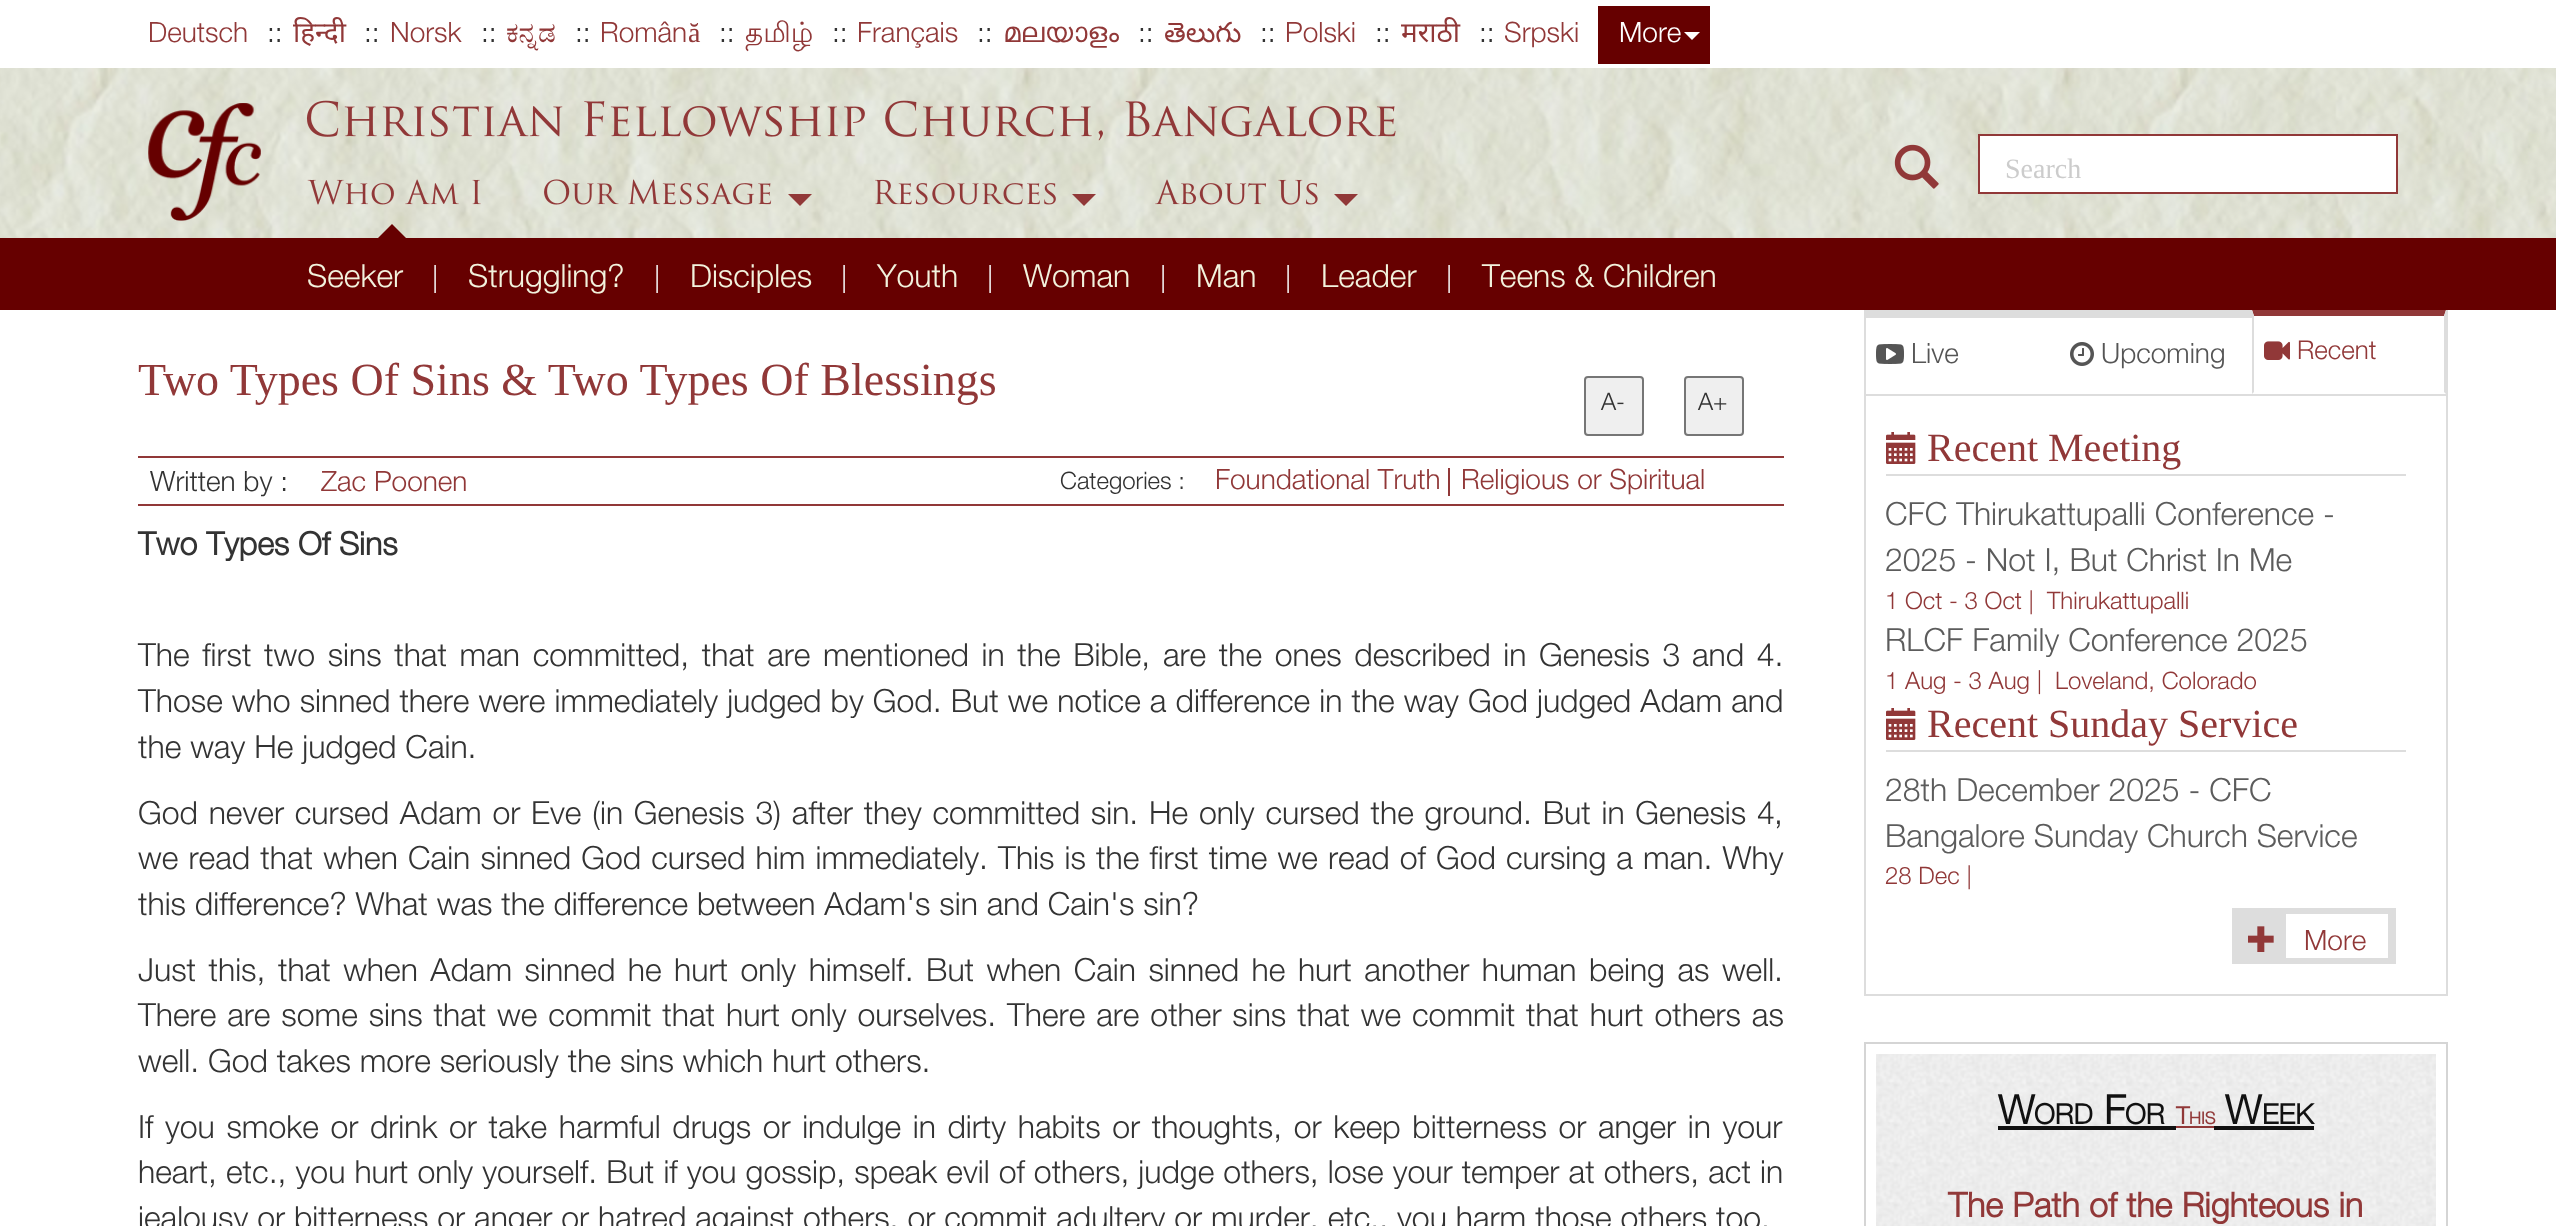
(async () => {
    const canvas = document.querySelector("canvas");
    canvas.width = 2556;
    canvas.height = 1226;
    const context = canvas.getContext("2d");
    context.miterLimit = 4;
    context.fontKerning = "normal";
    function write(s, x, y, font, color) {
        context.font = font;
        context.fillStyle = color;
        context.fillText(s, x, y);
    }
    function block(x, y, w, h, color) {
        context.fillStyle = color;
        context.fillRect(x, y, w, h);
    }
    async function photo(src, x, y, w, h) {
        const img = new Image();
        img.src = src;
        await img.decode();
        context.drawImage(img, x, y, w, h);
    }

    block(0, 0, 2556, 1226, "rgb(255, 255, 255)");
    write("Deutsch", 148, 42, "300 28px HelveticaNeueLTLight", "rgb(145, 56, 56)");
    write("::", 267, 42, "300 28px HelveticaNeueLTLight", "rgb(51, 51, 51)");
    write("हिन्दी", 293, 42, "28px Noto Sans", "rgb(145, 56, 56)");
    write("::", 364, 42, "300 28px HelveticaNeueLTLight", "rgb(51, 51, 51)");
    write("Norsk", 390, 42, "300 28px HelveticaNeueLTLight", "rgb(145, 56, 56)");
    write("::", 481, 42, "300 28px HelveticaNeueLTLight", "rgb(51, 51, 51)");
    write("ಕನ್ನಡ", 506, 42, "28px FreeSerif", "rgb(145, 56, 56)");
    write("::", 575, 42, "300 28px HelveticaNeueLTLight", "rgb(51, 51, 51)");
    write("Român", 600, 42, "300 28px HelveticaNeueLTLight", "rgb(145, 56, 56)");
    write("ă", 688, 42, "28px Liberation Serif", "rgb(145, 56, 56)");
    write("::", 719, 42, "300 28px HelveticaNeueLTLight", "rgb(51, 51, 51)");
    write("தமிழ்", 745, 42, "28px Lohit Tamil", "rgb(145, 56, 56)");
    write("::", 832, 42, "300 28px HelveticaNeueLTLight", "rgb(51, 51, 51)");
    write("Français", 857, 42, "300 28px HelveticaNeueLTLight", "rgb(145, 56, 56)");
    write("::", 977, 42, "300 28px HelveticaNeueLTLight", "rgb(51, 51, 51)");
    write("മലയാളം", 1003, 42, "28px FreeSans", "rgb(145, 56, 56)");
    write("::", 1138, 42, "300 28px HelveticaNeueLTLight", "rgb(51, 51, 51)");
    write("తెలుగు", 1164, 42, "28px Noto Sans Telugu", "rgb(145, 56, 56)");
    write("::", 1260, 42, "300 28px HelveticaNeueLTLight", "rgb(51, 51, 51)");
    write("Polski", 1285, 42, "300 28px HelveticaNeueLTLight", "rgb(145, 56, 56)");
    write("::", 1375, 42, "300 28px HelveticaNeueLTLight", "rgb(51, 51, 51)");
    write("मराठी", 1401, 42, "28px Noto Sans", "rgb(145, 56, 56)");
    write("::", 1479, 42, "300 28px HelveticaNeueLTLight", "rgb(51, 51, 51)");
    write("Srpski", 1504, 42, "300 28px HelveticaNeueLTLight", "rgb(145, 56, 56)");
    block(1598, 6, 112, 58, "rgb(102, 0, 0)");
    write("More", 1619, 42, "300 28px HelveticaNeueLTLight", "rgb(255, 255, 255)");
    context.beginPath();
    context.moveTo(1684, 32);
    context.lineTo(1700, 32);
    context.lineTo(1692, 40);
    context.closePath();
    context.fill();
    await photo("media/1.png", 0, 68, 2556, 170);
    await photo("media/2.png", 148, 103, 113, 118);
    await photo("media/3.png", 1894, 144, 45, 45);
    context.beginPath();
    context.rect(1979, 135, 418, 58);
    context.fill();
    context.strokeStyle = "rgb(145, 56, 56)";
    context.lineWidth = 2;
    context.stroke();
    write("Search", 2005, 178, "28px Liberation Serif", "rgb(204, 204, 204)");
    await photo("media/4.png", 306, 100, 1090, 41);
    await photo("media/5.png", 544, 179, 228, 26);
    context.fillStyle = "rgb(145, 56, 56)";
    context.beginPath();
    context.moveTo(788, 194);
    context.lineTo(812, 194);
    context.lineTo(800, 206);
    context.closePath();
    context.fill();
    await photo("media/6.png", 875, 179, 181, 26);
    context.beginPath();
    context.moveTo(1072, 194);
    context.lineTo(1096, 194);
    context.lineTo(1084, 206);
    context.closePath();
    context.fill();
    await photo("media/7.png", 1155, 179, 163, 26);
    context.beginPath();
    context.moveTo(1334, 194);
    context.lineTo(1358, 194);
    context.lineTo(1346, 206);
    context.closePath();
    context.fill();
    await photo("media/8.png", 307, 179, 174, 26);
    block(0, 238, 2556, 72, "rgb(102, 0, 0)");
    context.beginPath();
    context.moveTo(410, 242);
    context.lineTo(374, 242);
    context.lineTo(392, 224);
    context.closePath();
    context.fill();
    write("Seeker", 307, 287, "300 32px HelveticaNeueLTLight", "rgb(242, 242, 221)");
    write("|", 432, 287, "300 28px HelveticaNeueLTLight", "rgb(245, 245, 245)");
    write("Struggling?", 468, 287, "300 32px HelveticaNeueLTLight", "rgb(242, 242, 221)");
    write("|", 654, 287, "300 28px HelveticaNeueLTLight", "rgb(245, 245, 245)");
    write("Disciples", 690, 287, "300 32px HelveticaNeueLTLight", "rgb(242, 242, 221)");
    write("|", 841, 287, "300 28px HelveticaNeueLTLight", "rgb(245, 245, 245)");
    write("Youth", 877, 287, "300 32px HelveticaNeueLTLight", "rgb(242, 242, 221)");
    write("|", 987, 287, "300 28px HelveticaNeueLTLight", "rgb(245, 245, 245)");
    write("Woman", 1023, 287, "300 32px HelveticaNeueLTLight", "rgb(242, 242, 221)");
    write("|", 1160, 287, "300 28px HelveticaNeueLTLight", "rgb(245, 245, 245)");
    write("Man", 1196, 287, "300 32px HelveticaNeueLTLight", "rgb(242, 242, 221)");
    write("|", 1285, 287, "300 28px HelveticaNeueLTLight", "rgb(245, 245, 245)");
    write("Leader", 1321, 287, "300 32px HelveticaNeueLTLight", "rgb(242, 242, 221)");
    write("|", 1446, 287, "300 28px HelveticaNeueLTLight", "rgb(245, 245, 245)");
    write("Teens & Children", 1482, 287, "300 32px HelveticaNeueLTLight", "rgb(242, 242, 221)");
    write("Two Types Of Sins & Two Types Of Blessings", 138, 395, "46px Liberation Serif", "rgb(145, 56, 56)");
    context.fillStyle = "rgb(239, 239, 239)";
    context.beginPath();
    context.roundRect(1585, 377, 58, 58, 3);
    context.fill();
    context.strokeStyle = "rgb(118, 118, 118)";
    context.stroke();
    write("A-", 1601, 410, "300 24px HelveticaNeueLTLight", "rgb(51, 51, 51)");
    context.fillStyle = "rgb(239, 239, 239)";
    context.beginPath();
    context.roundRect(1685, 377, 58, 58, 3);
    context.fill();
    context.stroke();
    write("A+", 1698, 410, "300 24px HelveticaNeueLTLight", "rgb(51, 51, 51)");
    block(138, 456, 1646, 2, "rgb(145, 56, 56)");
    block(138, 504, 1646, 2, "rgb(145, 56, 56)");
    write("Written by :", 150, 491, "300 28px HelveticaNeueLTLight", "rgb(51, 51, 51)");
    write("Zac Poonen", 321, 491, "300 28px HelveticaNeueLTLight", "rgb(145, 56, 56)");
    write("Categories :", 1060, 489, "300 24px HelveticaNeueLTLight", "rgb(51, 51, 51)");
    write("Foundational Truth", 1215, 489, "300 28px HelveticaNeueLTLight", "rgb(145, 56, 56)");
    block(1448, 468, 2, 28, "rgb(145, 56, 56)");
    write("Religious or Spiritual", 1461, 489, "300 28px HelveticaNeueLTLight", "rgb(145, 56, 56)");
    write("Two Types Of Sins", 138, 555, "bold 32px HelveticaNeueLTLight", "rgb(51, 51, 51)");
    context.wordSpacing = "3.75px";
    write("The first two sins that man committed, that are mentioned in the Bible, are the ones described in Genesis 3", 138, 666, "300 32px HelveticaNeueLTLight", "rgb(51, 51, 51)");
    write("and 4.", 1692, 666, "300 32px HelveticaNeueLTLight", "rgb(51, 51, 51)");
    context.wordSpacing = "0.2px";
    write("Those who sinned there were immediately judged by God. But we notice a difference in the way God judged Adam and", 138, 712, "300 32px HelveticaNeueLTLight", "rgb(51, 51, 51)");
    context.wordSpacing = "0px";
    write("the way He judged Cain.", 138, 758, "300 32px HelveticaNeueLTLight", "rgb(51, 51, 51)");
    context.wordSpacing = "1.9px";
    write("God never cursed Adam or Eve (in Genesis 3) after they committed sin. He only cursed the ground. But in Genesis 4", 138, 824, "300 32px HelveticaNeueLTLight", "rgb(51, 51, 51)");
    context.wordSpacing = "0px";
    write(",", 1774, 824, "300 32px HelveticaNeueLTLight", "rgb(51, 51, 51)");
    context.wordSpacing = "1.25px";
    write("we read that when Cain sinned God cursed him immediately. This is the first time we read of God cursing a man. Why", 138, 869, "300 32px HelveticaNeueLTLight", "rgb(51, 51, 51)");
    context.wordSpacing = "0px";
    write("this difference? What was the difference between Adam's sin and Cain's sin?", 138, 915, "300 32px HelveticaNeueLTLight", "rgb(51, 51, 51)");
    context.wordSpacing = "3.6px";
    write("Just this, that when Adam sinned he hurt only himself. But when Cain sinned he hurt another human being as well.", 138, 981, "300 32px HelveticaNeueLTLight", "rgb(51, 51, 51)");
    context.wordSpacing = "2px";
    write("There are some sins that we commit that hurt only ourselves. There are other sins that we commit that hurt others as", 138, 1026, "300 32px HelveticaNeueLTLight", "rgb(51, 51, 51)");
    context.wordSpacing = "0px";
    write("well. God takes more seriously the sins which hurt others.", 138, 1072, "300 32px HelveticaNeueLTLight", "rgb(51, 51, 51)");
    context.wordSpacing = "2.7px";
    write("If you smoke or drink or take harmful drugs or indulge in dirty habits or thoughts, or keep bitterness or anger in your", 138, 1138, "300 32px HelveticaNeueLTLight", "rgb(51, 51, 51)");
    context.wordSpacing = "0.2px";
    write("heart, etc., you hurt only yourself. But if you gossip, speak evil of others, judge others, lose your temper at others, act in", 138, 1183, "300 32px HelveticaNeueLTLight", "rgb(51, 51, 51)");
    context.wordSpacing = "0px";
    write("jealousy or bitterness or anger or hatred against others, or commit adultery or murder, etc., you harm those others too.", 138, 1229, "300 32px HelveticaNeueLTLight", "rgb(51, 51, 51)");
    block(1864, 310, 388, 8, "rgb(221, 221, 221)");
    block(2446, 310, 2, 686, "rgb(221, 221, 221)");
    block(1864, 394, 584, 2, "rgb(221, 221, 221)");
    block(1864, 994, 584, 2, "rgb(221, 221, 221)");
    block(1864, 396, 2, 600, "rgb(221, 221, 221)");
    context.beginPath();
    context.moveTo(1864, 398);
    context.lineTo(1864, 310);
    context.lineTo(1866, 316);
    context.lineTo(1866, 396);
    context.closePath();
    context.fill();
    await photo("media/9.png", 1876, 344, 28, 20);
    write("Live", 1911, 363, "300 28px HelveticaNeueLTLight", "rgb(85, 85, 85)");
    await photo("media/10.png", 2070, 342, 24, 24);
    write("Upcoming", 2101, 363, "300 28px HelveticaNeueLTLight", "rgb(85, 85, 85)");
    context.fillStyle = "rgb(145, 56, 56)";
    context.beginPath();
    context.moveTo(2252, 310);
    context.lineTo(2446, 310);
    context.lineTo(2444, 316);
    context.lineTo(2254, 316);
    context.closePath();
    context.fill();
    context.fillStyle = "rgb(221, 221, 221)";
    context.beginPath();
    context.moveTo(2446, 310);
    context.lineTo(2446, 394);
    context.lineTo(2444, 392);
    context.lineTo(2444, 316);
    context.closePath();
    context.fill();
    context.beginPath();
    context.moveTo(2252, 394);
    context.lineTo(2252, 310);
    context.lineTo(2254, 316);
    context.lineTo(2254, 392);
    context.closePath();
    context.fill();
    await photo("media/11.png", 2264, 341, 26, 19);
    write("Recent", 2297, 359, "300 26px HelveticaNeueLTLight", "rgb(145, 56, 56)");
    block(1886, 474, 520, 2, "rgb(221, 221, 221)");
    await photo("media/12.png", 1886, 432, 30, 32);
    write("Recent Meeting", 1927, 461, "40px Liberation Serif", "rgb(145, 56, 56)");
    write("CFC Thirukattupalli Conference -", 1885, 525, "300 32px HelveticaNeueLTLight", "rgb(92, 92, 92)");
    write("2025 - Not I, But Christ In Me", 1885, 571, "300 32px HelveticaNeueLTLight", "rgb(92, 92, 92)");
    write("1 Oct - 3 Oct |", 1885, 609, "300 24px HelveticaNeueLTLight", "rgb(145, 56, 56)");
    write("Thirukattupalli", 2047, 609, "300 24px HelveticaNeueLTLight", "rgb(145, 56, 56)");
    write("RLCF Family Conference 2025", 1885, 651, "300 32px HelveticaNeueLTLight", "rgb(92, 92, 92)");
    write("1 Aug - 3 Aug |", 1885, 689, "300 24px HelveticaNeueLTLight", "rgb(145, 56, 56)");
    write("Loveland, Colorado", 2055, 689, "300 24px HelveticaNeueLTLight", "rgb(145, 56, 56)");
    block(1886, 750, 520, 2, "rgb(221, 221, 221)");
    await photo("media/12.png", 1886, 708, 30, 32);
    write("Recent Sunday Service", 1927, 737, "40px Liberation Serif", "rgb(145, 56, 56)");
    write("28th December 2025 - CFC", 1885, 801, "300 32px HelveticaNeueLTLight", "rgb(92, 92, 92)");
    write("Bangalore Sunday Church Service", 1885, 847, "300 32px HelveticaNeueLTLight", "rgb(92, 92, 92)");
    write("28 Dec |", 1885, 884, "300 24px HelveticaNeueLTLight", "rgb(145, 56, 56)");
    block(2232, 908, 164, 6, "rgb(221, 221, 221)");
    block(2388, 908, 8, 56, "rgb(221, 221, 221)");
    block(2232, 958, 164, 6, "rgb(221, 221, 221)");
    block(2232, 908, 6, 56, "rgb(221, 221, 221)");
    block(2238, 914, 48, 44, "rgb(221, 221, 221)");
    await photo("media/13.png", 2248, 926, 26, 26);
    write("More", 2304, 950, "300 28px HelveticaNeueLTLight", "rgb(145, 56, 56)");
    context.strokeStyle = "rgb(213, 213, 213)";
    context.strokeRect(1865, 1043, 582, 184);
    await photo("media/14.png", 1876, 1054, 560, 172);
    write("W", 1998, 1124, "bold 40px HelveticaNeueLTLight", "rgb(17, 17, 17)");
    write("ORD", 2034, 1124, "bold 28px HelveticaNeueLTLight", "rgb(17, 17, 17)");
    block(1998, 1126, 178, 4, "rgb(17, 17, 17)");
    write("F", 2104, 1124, "bold 40px HelveticaNeueLTLight", "rgb(17, 17, 17)");
    write("OR", 2125, 1124, "bold 28px HelveticaNeueLTLight", "rgb(17, 17, 17)");
    write("T", 2176, 1124, "bold 24px HelveticaNeueLTLight", "rgb(145, 56, 56)");
    write("HIS", 2189, 1124, "bold 17px HelveticaNeueLTLight", "rgb(145, 56, 56)");
    block(2176, 1126, 38, 2, "rgb(145, 56, 56)");
    write("W", 2225, 1124, "bold 40px HelveticaNeueLTLight", "rgb(17, 17, 17)");
    write("EEK", 2262, 1124, "bold 28px HelveticaNeueLTLight", "rgb(17, 17, 17)");
    block(2214, 1126, 100, 4, "rgb(17, 17, 17)");
    write("The Path of the Righteous in", 1948, 1217, "bold 34px HelveticaNeueLTLight", "rgb(145, 56, 56)");
})();
